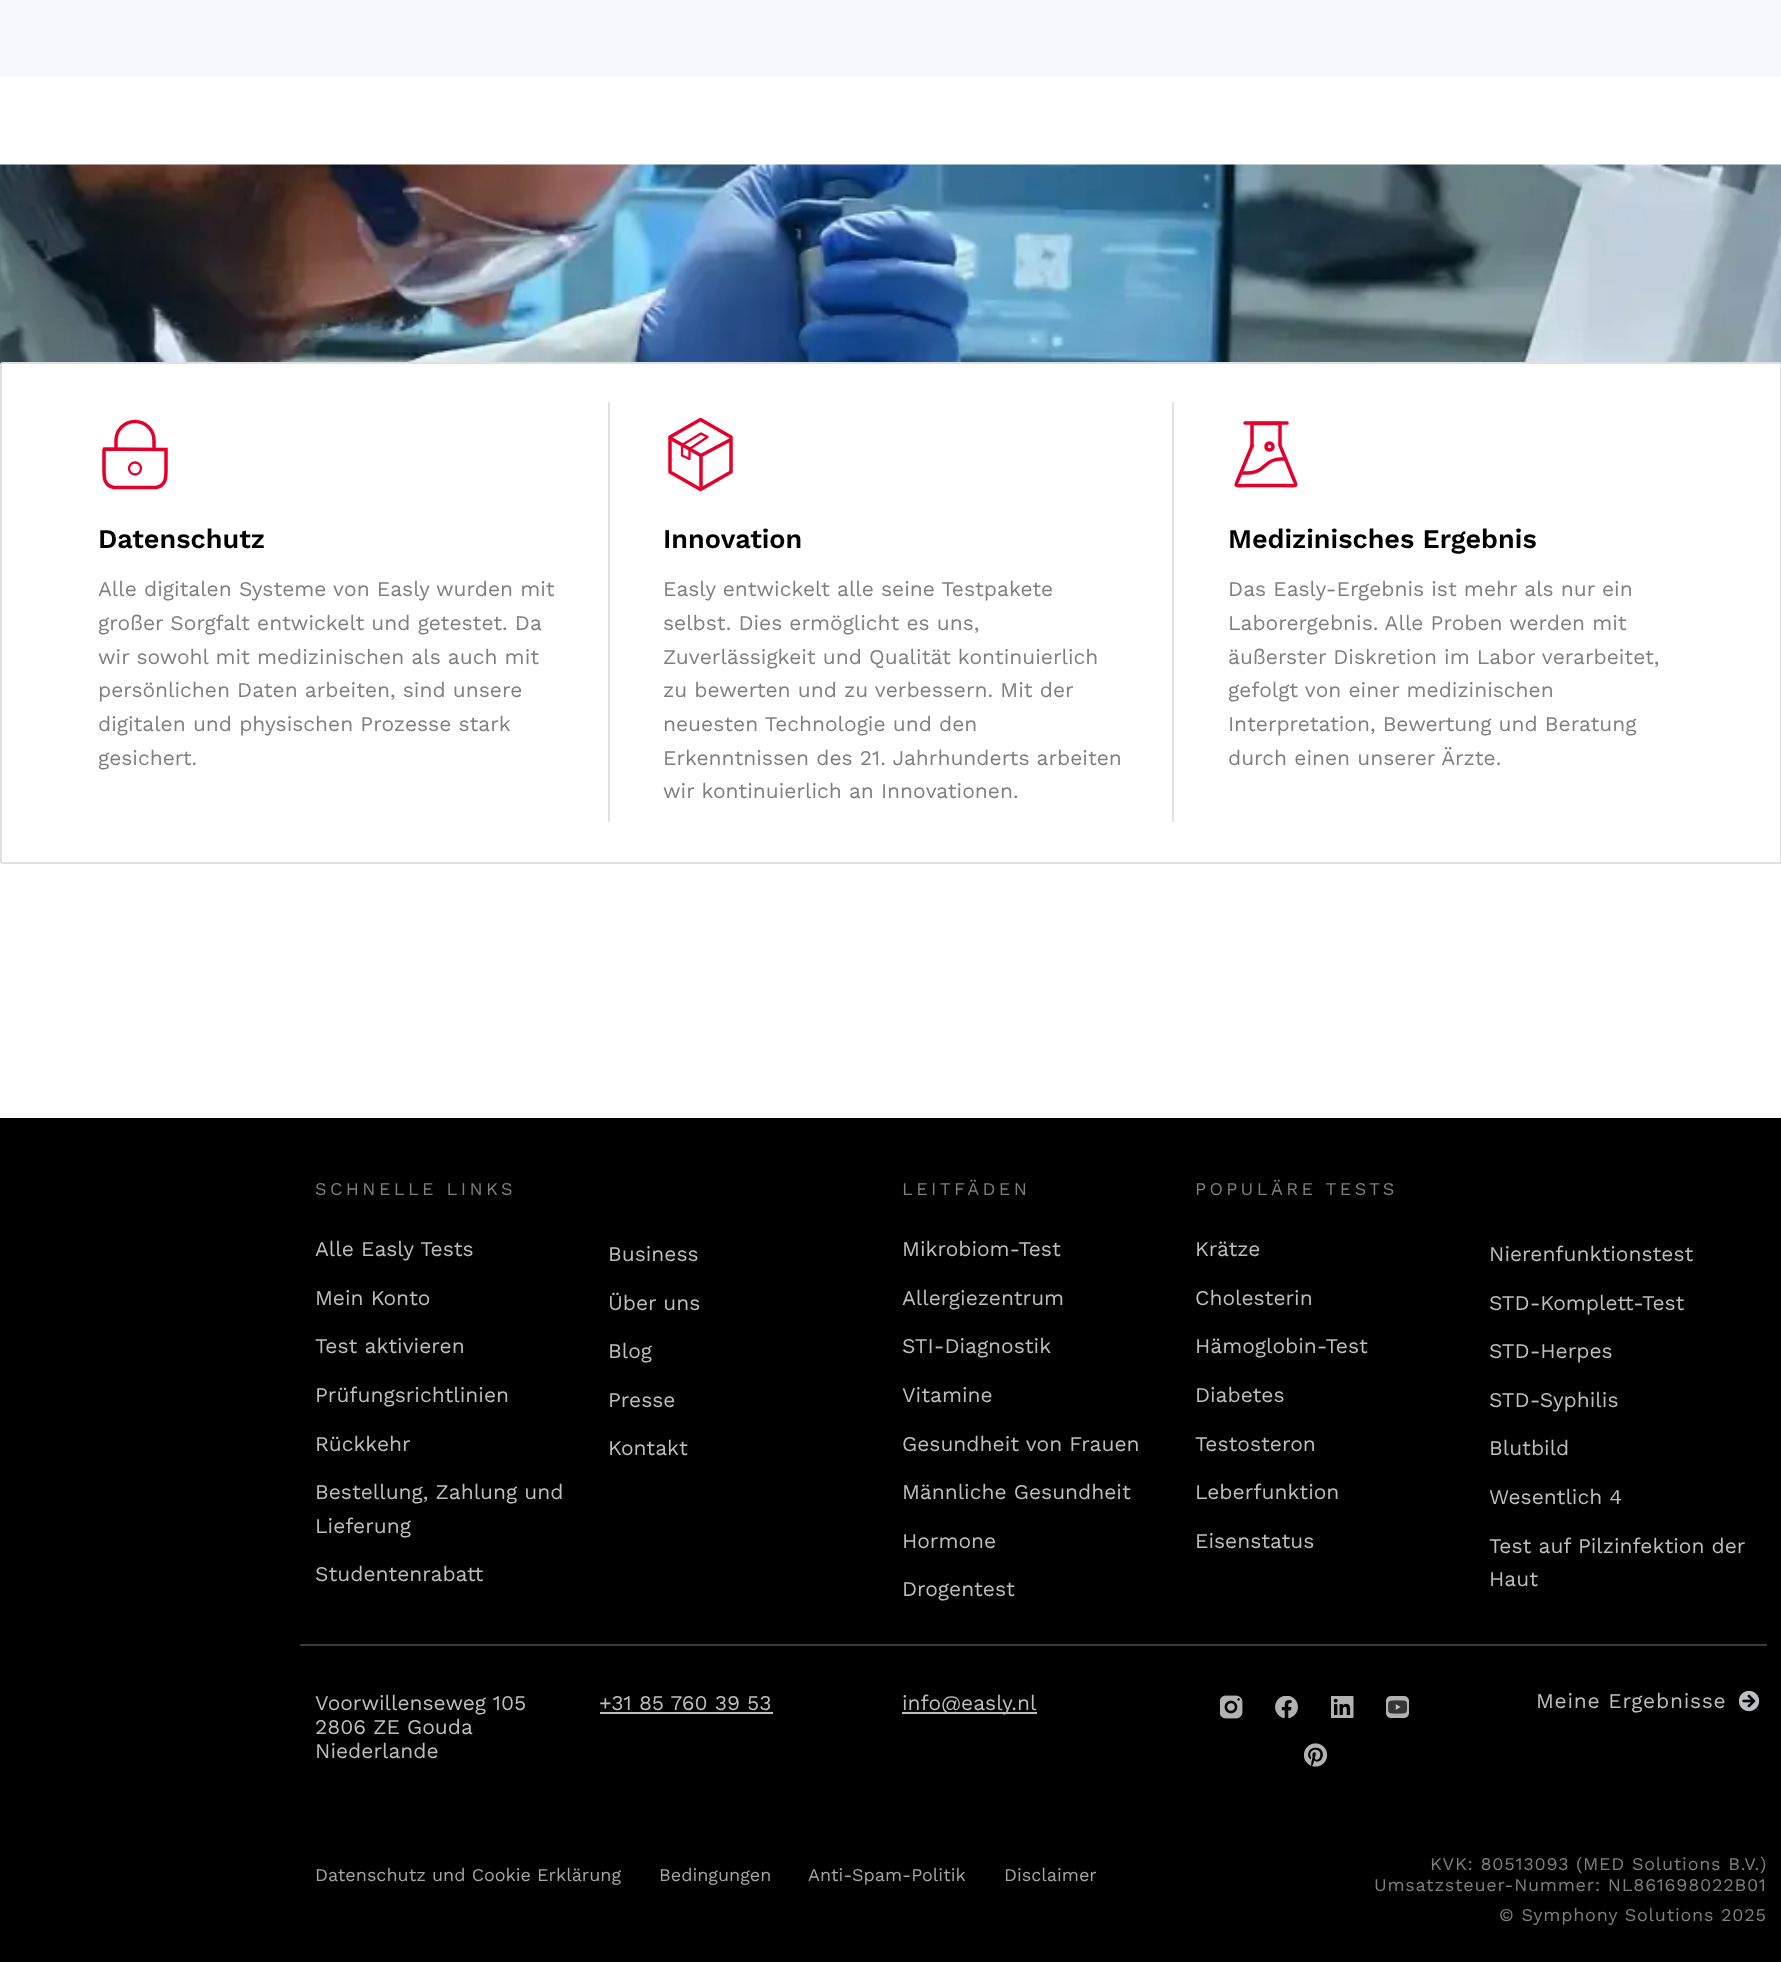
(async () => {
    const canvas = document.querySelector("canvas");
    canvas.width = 1781;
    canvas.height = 1962;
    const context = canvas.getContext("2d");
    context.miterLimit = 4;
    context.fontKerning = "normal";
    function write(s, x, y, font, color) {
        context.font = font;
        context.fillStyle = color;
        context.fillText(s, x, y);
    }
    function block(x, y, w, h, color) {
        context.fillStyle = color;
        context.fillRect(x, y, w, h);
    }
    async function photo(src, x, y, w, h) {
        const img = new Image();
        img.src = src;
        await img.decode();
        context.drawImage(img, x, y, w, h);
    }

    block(0, 0, 1781, 1962, "rgb(255, 255, 255)");
    block(0, 0, 1781, 77, "rgb(247, 248, 250)");
    await photo("media/1.png", 0, 164, 1781, 201);
    context.fillStyle = "rgb(255, 255, 255)";
    context.beginPath();
    context.roundRect(1, 363, 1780, 500, 2);
    context.fill();
    context.strokeStyle = "rgb(224, 224, 224)";
    context.lineWidth = 2;
    context.stroke();
    block(608, 402, 2, 420, "rgb(224, 224, 224)");
    context.beginPath();
    context.moveTo(104, 450);
    context.lineTo(104.5, 449);
    context.lineTo(166, 449.5);
    context.lineTo(166, 467);
    context.bezierCurveTo(166, 475.5, 167, 485.5, 156, 487.5);
    context.lineTo(114, 487.5);
    context.bezierCurveTo(103, 485.5, 104, 475.5, 104, 467);
    context.closePath();
    context.strokeStyle = "rgb(228, 0, 43)";
    context.lineWidth = 3.5;
    context.stroke();
    context.beginPath();
    context.moveTo(116, 450);
    context.lineTo(116, 440.5);
    context.bezierCurveTo(116, 430, 124.5, 421.5, 135, 421.5);
    context.bezierCurveTo(145.5, 421.5, 154, 430, 154, 440.5);
    context.lineTo(154, 450);
    context.stroke();
    context.beginPath();
    context.arc(135, 468.5, 6, 0, Math.PI * 2);
    context.lineWidth = 2.3;
    context.stroke();
    write("Datenschutz", 98, 548, "600 27px Work Sans", "rgb(0, 0, 0)");
    write("Alle digitalen Systeme von Easly wurden mit", 98, 596, "21px Work Sans", "rgb(126, 127, 128)");
    write("großer Sorgfalt entwickelt und getestet. Da", 98, 630, "21px Work Sans", "rgb(126, 127, 128)");
    write("wir sowohl mit medizinischen als auch mit", 98, 664, "21px Work Sans", "rgb(126, 127, 128)");
    write("persönlichen Daten arbeiten, sind unsere", 98, 697, "21px Work Sans", "rgb(126, 127, 128)");
    write("digitalen und physischen Prozesse stark", 98, 731, "21px Work Sans", "rgb(126, 127, 128)");
    write("gesichert.", 98, 765, "21px Work Sans", "rgb(126, 127, 128)");
    block(1172, 402, 2, 420, "rgb(224, 224, 224)");
    context.beginPath();
    context.moveTo(682, 445);
    context.lineTo(701, 433.5);
    context.lineTo(707.5, 437);
    context.lineTo(689.5, 449);
    context.lineTo(689.5, 459);
    context.lineTo(682, 455.5);
    context.closePath();
    context.lineJoin = "round";
    context.stroke();
    context.beginPath();
    context.moveTo(700.5, 419.5);
    context.lineTo(731, 437);
    context.lineTo(731, 472);
    context.lineTo(700.5, 489.5);
    context.lineTo(670, 472);
    context.lineTo(670, 437);
    context.closePath();
    context.lineWidth = 3.5;
    context.stroke();
    context.beginPath();
    context.moveTo(701, 489.5);
    context.lineTo(701, 455.5);
    context.moveTo(701, 455.5);
    context.lineTo(670, 438);
    context.moveTo(701, 455.5);
    context.lineTo(731, 439.5);
    context.stroke();
    write("Innovation", 663, 548, "600 27px Work Sans", "rgb(0, 0, 0)");
    write("Easly entwickelt alle seine Testpakete", 663, 596, "21px Work Sans", "rgb(126, 127, 128)");
    write("selbst. Dies ermöglicht es uns,", 663, 630, "21px Work Sans", "rgb(126, 127, 128)");
    write("Zuverlässigkeit und Qualität kontinuierlich", 663, 664, "21px Work Sans", "rgb(126, 127, 128)");
    write("zu bewerten und zu verbessern. Mit der", 663, 697, "21px Work Sans", "rgb(126, 127, 128)");
    write("neuesten Technologie und den", 663, 731, "21px Work Sans", "rgb(126, 127, 128)");
    write("Erkenntnissen des 21. Jahrhunderts arbeiten", 663, 765, "21px Work Sans", "rgb(126, 127, 128)");
    write("wir kontinuierlich an Innovationen.", 663, 798, "21px Work Sans", "rgb(126, 127, 128)");
    context.beginPath();
    context.moveTo(1252, 423.5);
    context.lineTo(1280, 423.5);
    context.lineTo(1280, 445.5);
    context.lineTo(1293.5, 478.5);
    context.bezierCurveTo(1297.5, 488, 1297.5, 485.5, 1285.5, 485.5);
    context.lineTo(1246.5, 485.5);
    context.bezierCurveTo(1234.5, 485.5, 1234.5, 488, 1238.5, 478.5);
    context.lineTo(1252, 446);
    context.lineTo(1250, 445.5);
    context.lineTo(1252, 446);
    context.closePath();
    context.lineJoin = "miter";
    context.stroke();
    context.beginPath();
    context.moveTo(1242.5, 473);
    context.lineTo(1248, 473);
    context.bezierCurveTo(1254, 473, 1260, 470.5, 1264.5, 466);
    context.bezierCurveTo(1269, 461.5, 1275, 459, 1281, 459);
    context.lineTo(1285, 459);
    context.moveTo(1245, 423);
    context.lineTo(1287, 423);
    context.lineCap = "round";
    context.stroke();
    context.beginPath();
    context.arc(1269.5, 446.5, 3.5, 0, Math.PI * 2);
    context.stroke();
    write("Medizinisches Ergebnis", 1228, 548, "600 27px Work Sans", "rgb(0, 0, 0)");
    write("Das Easly-Ergebnis ist mehr als nur ein", 1228, 596, "21px Work Sans", "rgb(126, 127, 128)");
    write("Laborergebnis. Alle Proben werden mit", 1228, 630, "21px Work Sans", "rgb(126, 127, 128)");
    write("äußerster Diskretion im Labor verarbeitet,", 1228, 664, "21px Work Sans", "rgb(126, 127, 128)");
    write("gefolgt von einer medizinischen", 1228, 697, "21px Work Sans", "rgb(126, 127, 128)");
    write("Interpretation, Bewertung und Beratung", 1228, 731, "21px Work Sans", "rgb(126, 127, 128)");
    write("durch einen unserer Ärzte.", 1228, 765, "21px Work Sans", "rgb(126, 127, 128)");
    block(0, 1118, 1781, 844, "rgb(0, 0, 0)");
    context.letterSpacing = "3.4px";
    write("SCHNELLE LINKS", 315, 1195, "18px Work Sans", "rgb(126, 127, 128)");
    context.letterSpacing = "0px";
    write("Alle Easly Tests", 315, 1256, "21px Work Sans", "rgb(189, 190, 191)");
    write("Mein Konto", 315, 1305, "21px Work Sans", "rgb(189, 190, 191)");
    write("Test aktivieren", 315, 1353, "21px Work Sans", "rgb(189, 190, 191)");
    write("Prüfungsrichtlinien", 315, 1402, "21px Work Sans", "rgb(189, 190, 191)");
    write("Rückkehr", 315, 1451, "21px Work Sans", "rgb(189, 190, 191)");
    write("Bestellung, Zahlung und", 315, 1499, "21px Work Sans", "rgb(189, 190, 191)");
    write("Lieferung", 315, 1533, "21px Work Sans", "rgb(189, 190, 191)");
    write("Studentenrabatt", 315, 1581, "21px Work Sans", "rgb(189, 190, 191)");
    write("Business", 608, 1261, "21px Work Sans", "rgb(189, 190, 191)");
    write("Über uns", 608, 1310, "21px Work Sans", "rgb(189, 190, 191)");
    write("Blog", 608, 1358, "21px Work Sans", "rgb(189, 190, 191)");
    write("Presse", 608, 1407, "21px Work Sans", "rgb(189, 190, 191)");
    write("Kontakt", 608, 1455, "21px Work Sans", "rgb(189, 190, 191)");
    context.letterSpacing = "3.4px";
    write("LEITFÄDEN", 902, 1195, "18px Work Sans", "rgb(126, 127, 128)");
    context.letterSpacing = "0px";
    write("Mikrobiom-Test", 902, 1256, "21px Work Sans", "rgb(189, 190, 191)");
    write("Allergiezentrum", 902, 1305, "21px Work Sans", "rgb(189, 190, 191)");
    write("STI-Diagnostik", 902, 1353, "21px Work Sans", "rgb(189, 190, 191)");
    write("Vitamine", 902, 1402, "21px Work Sans", "rgb(189, 190, 191)");
    write("Gesundheit von Frauen", 902, 1451, "21px Work Sans", "rgb(189, 190, 191)");
    write("Männliche Gesundheit", 902, 1499, "21px Work Sans", "rgb(189, 190, 191)");
    write("Hormone", 902, 1548, "21px Work Sans", "rgb(189, 190, 191)");
    write("Drogentest", 902, 1596, "21px Work Sans", "rgb(189, 190, 191)");
    context.letterSpacing = "3.4px";
    write("POPULÄRE TESTS", 1195, 1195, "18px Work Sans", "rgb(126, 127, 128)");
    context.letterSpacing = "0px";
    write("Krätze", 1195, 1256, "21px Work Sans", "rgb(189, 190, 191)");
    write("Cholesterin", 1195, 1305, "21px Work Sans", "rgb(189, 190, 191)");
    write("Hämoglobin-Test", 1195, 1353, "21px Work Sans", "rgb(189, 190, 191)");
    write("Diabetes", 1195, 1402, "21px Work Sans", "rgb(189, 190, 191)");
    write("Testosteron", 1195, 1451, "21px Work Sans", "rgb(189, 190, 191)");
    write("Leberfunktion", 1195, 1499, "21px Work Sans", "rgb(189, 190, 191)");
    write("Eisenstatus", 1195, 1548, "21px Work Sans", "rgb(189, 190, 191)");
    write("Nierenfunktionstest", 1489, 1261, "21px Work Sans", "rgb(189, 190, 191)");
    write("STD-Komplett-Test", 1489, 1310, "21px Work Sans", "rgb(189, 190, 191)");
    write("STD-Herpes", 1489, 1358, "21px Work Sans", "rgb(189, 190, 191)");
    write("STD-Syphilis", 1489, 1407, "21px Work Sans", "rgb(189, 190, 191)");
    write("Blutbild", 1489, 1455, "21px Work Sans", "rgb(189, 190, 191)");
    write("Wesentlich 4", 1489, 1504, "21px Work Sans", "rgb(189, 190, 191)");
    write("Test auf Pilzinfektion der", 1489, 1553, "21px Work Sans", "rgb(189, 190, 191)");
    write("Haut", 1489, 1586, "21px Work Sans", "rgb(189, 190, 191)");
    block(300, 1644, 1467, 2, "rgb(57, 57, 57)");
    write("Voorwillenseweg 105", 315, 1710, "21px Work Sans", "rgb(189, 190, 191)");
    write("2806 ZE Gouda", 315, 1734, "21px Work Sans", "rgb(189, 190, 191)");
    write("Niederlande", 315, 1758, "21px Work Sans", "rgb(189, 190, 191)");
    write("+31 85 760 39 53", 599, 1710, "21px Work Sans", "rgb(189, 190, 191)");
    block(600, 1712, 173, 2, "rgb(189, 190, 191)");
    block(902, 1712, 135, 2, "rgb(189, 190, 191)");
    write("info@easly.nl", 902, 1710, "21px Work Sans", "rgb(189, 190, 191)");
    await photo("media/2.png", 1220, 1695, 23, 24);
    await photo("media/3.png", 1275, 1696, 23, 22);
    await photo("media/4.png", 1331, 1696, 23, 22);
    await photo("media/5.png", 1386, 1696, 23, 22);
    await photo("media/6.png", 1304, 1743, 24, 24);
    context.letterSpacing = "0.75px";
    write("Meine Ergebnisse", 1536, 1708, "21px Work Sans", "rgb(189, 190, 191)");
    await photo("media/7.png", 1739, 1691, 21, 21);
    context.letterSpacing = "0px";
    write("Datenschutz und Cookie Erklärung", 315, 1881, "18px Work Sans", "rgb(164, 165, 166)");
    write("Bedingungen", 659, 1881, "18px Work Sans", "rgb(164, 165, 166)");
    write("Anti-Spam-Politik", 808, 1881, "18px Work Sans", "rgb(164, 165, 166)");
    write("Disclaimer", 1004, 1881, "18px Work Sans", "rgb(164, 165, 166)");
    context.letterSpacing = "0.75px";
    write("KVK: 80513093 (MED Solutions B.V.)", 1430, 1870, "18px Work Sans", "rgb(126, 127, 128)");
    write("Umsatzsteuer-Nummer: NL861698022B01", 1374, 1891, "18px Work Sans", "rgb(126, 127, 128)");
    write("© Symphony Solutions 2025", 1499, 1921, "18px Work Sans", "rgb(126, 127, 128)");
})();
